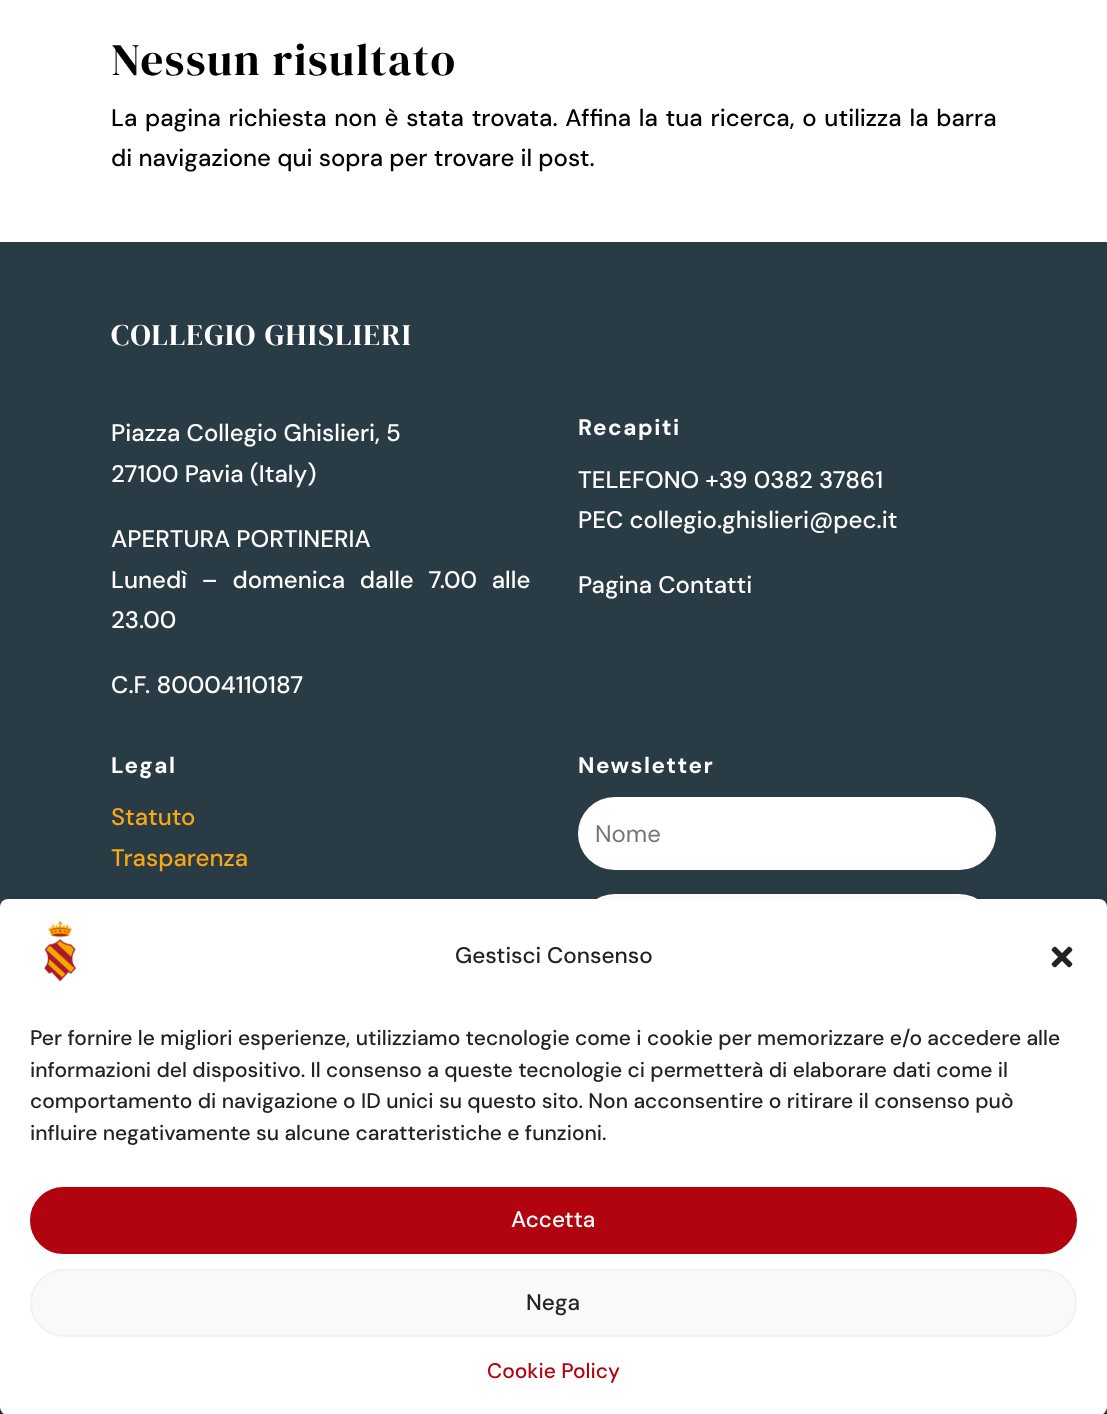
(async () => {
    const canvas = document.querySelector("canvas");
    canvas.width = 1107;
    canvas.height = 1414;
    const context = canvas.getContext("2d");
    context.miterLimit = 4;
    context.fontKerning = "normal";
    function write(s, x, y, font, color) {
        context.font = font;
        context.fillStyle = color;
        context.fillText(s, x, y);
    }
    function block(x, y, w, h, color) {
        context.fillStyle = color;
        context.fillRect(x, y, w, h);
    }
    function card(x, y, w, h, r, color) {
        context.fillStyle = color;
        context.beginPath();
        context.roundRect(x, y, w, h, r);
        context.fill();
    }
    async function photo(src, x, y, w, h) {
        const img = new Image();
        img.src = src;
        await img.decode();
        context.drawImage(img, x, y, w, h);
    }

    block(0, 0, 1107, 1414, "rgb(255, 255, 255)");
    context.letterSpacing = "1.5px";
    write("Nessun risultato", 111, 75, "45px DM Serif Display", "rgb(0, 0, 0)");
    context.letterSpacing = "0px";
    context.wordSpacing = "1.6px";
    write("La pagina richiesta non è stata trovata. Affina la tua ricerca, o utilizza la barra", 111, 126, "500 24px DM Sans", "rgb(0, 0, 0)");
    context.wordSpacing = "0px";
    write("di navigazione qui sopra per trovare il post.", 111, 166, "500 24px DM Sans", "rgb(0, 0, 0)");
    block(0, 242, 1107, 1172, "rgb(41, 59, 69)");
    context.letterSpacing = "1.5px";
    write("COLLEGIO GHISLIERI", 111, 345, "30px DM Serif Display", "rgb(255, 255, 255)");
    context.letterSpacing = "0px";
    write("Piazza Collegio Ghislieri, 5", 111, 441, "500 24px DM Sans", "rgb(255, 255, 255)");
    write("27100 Pavia (Italy)", 111, 482, "500 24px DM Sans", "rgb(255, 255, 255)");
    write("APERTURA PORTINERIA", 111, 547, "500 24px DM Sans", "rgb(255, 255, 255)");
    context.wordSpacing = "8.5px";
    write("Lunedì – domenica dalle 7.00 alle", 111, 588, "500 24px DM Sans", "rgb(255, 255, 255)");
    context.wordSpacing = "0px";
    write("23.00", 111, 628, "500 24px DM Sans", "rgb(255, 255, 255)");
    write("C.F. 80004110187", 111, 693, "500 24px DM Sans", "rgb(255, 255, 255)");
    context.letterSpacing = "1.5px";
    write("Recapiti", 578, 435, "bold 22.5px DM Sans", "rgb(255, 255, 255)");
    context.letterSpacing = "0px";
    write("TELEFONO +39 0382 37861", 578, 488, "500 24px DM Sans", "rgb(255, 255, 255)");
    write("PEC collegio.ghislieri@pec.it", 578, 528, "500 24px DM Sans", "rgb(255, 255, 255)");
    write("Pagina Contatti", 578, 593, "500 24px DM Sans", "rgb(255, 255, 255)");
    context.letterSpacing = "1.5px";
    write("Legal", 111, 773, "bold 22.5px DM Sans", "rgb(255, 255, 255)");
    context.letterSpacing = "0px";
    write("Statuto", 111, 825, "500 24px DM Sans", "rgb(249, 167, 19)");
    write("Trasparenza", 111, 866, "500 24px DM Sans", "rgb(249, 167, 19)");
    context.letterSpacing = "1.5px";
    write("Newsletter", 578, 773, "bold 22.5px DM Sans", "rgb(255, 255, 255)");
    card(578, 797, 418, 73, 36.5, "rgb(255, 255, 255)");
    context.letterSpacing = "0px";
    write("Nome", 595, 842, "24px DM Sans", "rgb(117, 117, 117)");
    card(578, 894, 418, 74, 37, "rgb(255, 255, 255)");
    context.fillStyle = "rgba(0, 0, 0, 0.23)";
    context.filter = "blur(4.5px)";
    context.beginPath();
    context.roundRect(0, 908, 1107, 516, 8);
    context.fill();
    context.filter = "none";
    context.fillStyle = "rgba(0, 0, 0, 0.19)";
    context.filter = "blur(15px)";
    context.beginPath();
    context.roundRect(0, 914, 1107, 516, 8);
    context.fill();
    context.filter = "none";
    card(0, 899, 1107, 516, 8, "rgb(255, 255, 255)");
    await photo("media/1.png", 44, 921, 32, 60);
    write("Gestisci Consenso", 455, 963, "500 22.5px DM Sans", "rgb(34, 34, 34)");
    await photo("media/2.png", 1051, 946, 22, 22);
    write("Per fornire le migliori esperienze, utilizziamo tecnologie come i cookie per memorizzare e/o accedere alle", 30, 1045, "500 21px DM Sans", "rgb(34, 34, 34)");
    write("informazioni del dispositivo. Il consenso a queste tecnologie ci permetterà di elaborare dati come il", 30, 1077, "500 21px DM Sans", "rgb(34, 34, 34)");
    write("comportamento di navigazione o ID unici su questo sito. Non acconsentire o ritirare il consenso può", 30, 1108, "500 21px DM Sans", "rgb(34, 34, 34)");
    write("influire negativamente su alcune caratteristiche e funzioni.", 30, 1140, "500 21px DM Sans", "rgb(34, 34, 34)");
    context.fillStyle = "rgb(177, 4, 14)";
    context.beginPath();
    context.roundRect(31, 1188, 1045, 65, 32.5);
    context.fill();
    context.strokeStyle = "rgb(177, 4, 14)";
    context.lineWidth = 2;
    context.stroke();
    write("Accetta", 511, 1227, "500 22.5px DM Sans", "rgb(255, 255, 255)");
    context.fillStyle = "rgb(249, 249, 249)";
    context.beginPath();
    context.roundRect(31, 1270, 1045, 66, 33);
    context.fill();
    context.strokeStyle = "rgb(242, 242, 242)";
    context.stroke();
    write("Nega", 526, 1310, "500 22.5px DM Sans", "rgb(34, 34, 34)");
    write("Cookie Policy", 487, 1378, "500 21px DM Sans", "rgb(177, 4, 14)");
})();
